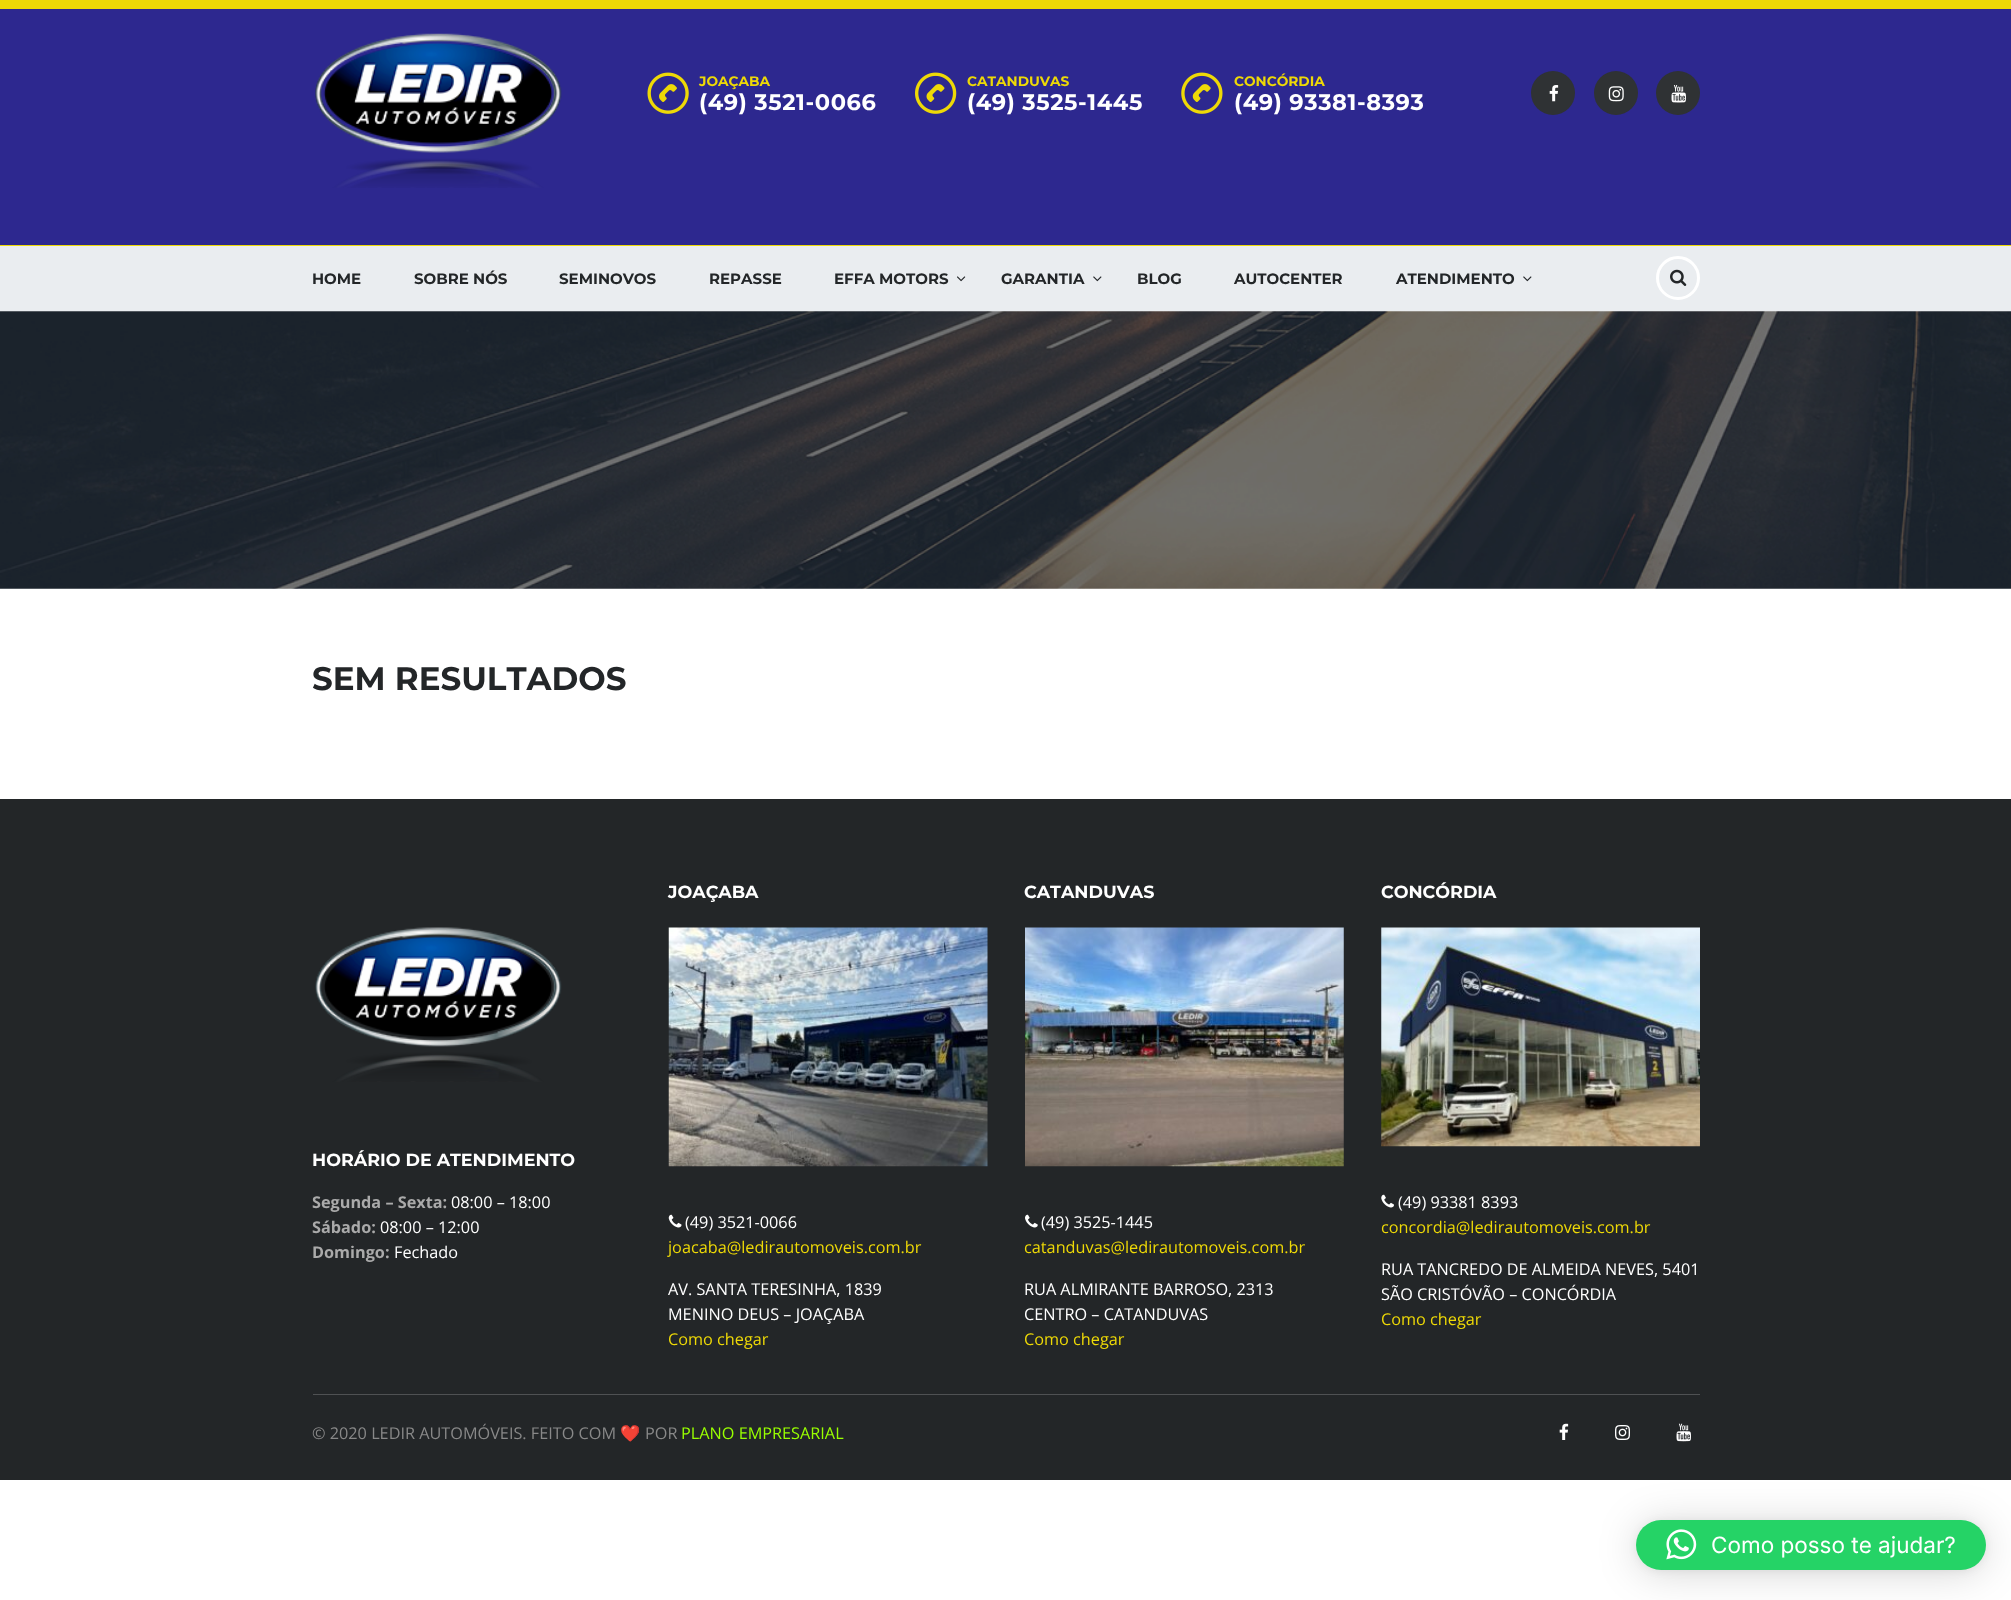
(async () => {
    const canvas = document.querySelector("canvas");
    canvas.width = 2011;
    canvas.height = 1600;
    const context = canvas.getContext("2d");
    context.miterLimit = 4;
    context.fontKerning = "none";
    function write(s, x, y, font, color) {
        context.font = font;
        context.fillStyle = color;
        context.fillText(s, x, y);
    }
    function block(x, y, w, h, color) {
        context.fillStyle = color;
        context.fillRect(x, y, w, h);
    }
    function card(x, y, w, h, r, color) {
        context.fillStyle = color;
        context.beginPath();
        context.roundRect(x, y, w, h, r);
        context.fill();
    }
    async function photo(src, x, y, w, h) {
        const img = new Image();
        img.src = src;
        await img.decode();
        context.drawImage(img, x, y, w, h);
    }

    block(0, 0, 2011, 1600, "rgb(255, 255, 255)");
    block(0, 9, 2011, 236, "rgb(45, 40, 143)");
    block(0, 0, 2011, 9, "rgb(238, 217, 6)");
    block(0, 245, 2011, 1, "rgb(238, 217, 6)");
    await photo("media/1.png", 315, 33, 247, 155);
    await photo("media/2.png", 647, 72, 42, 42);
    write("JOAÇABA", 699, 86, "bold 13.75px Montserrat", "rgb(238, 217, 6)");
    context.letterSpacing = "0.6px";
    write("(49) 3521-0066", 699, 110, "bold 22.5px Montserrat", "rgb(255, 255, 255)");
    await photo("media/3.png", 915, 72, 42, 42);
    context.letterSpacing = "0px";
    write("CATANDUVAS", 967, 86, "bold 13.75px Montserrat", "rgb(238, 217, 6)");
    context.letterSpacing = "0.6px";
    write("(49) 3525-1445", 967, 110, "bold 22.5px Montserrat", "rgb(255, 255, 255)");
    await photo("media/4.png", 1181, 72, 42, 42);
    context.letterSpacing = "0px";
    write("CONCÓRDIA", 1234, 86, "bold 13.75px Montserrat", "rgb(238, 217, 6)");
    context.letterSpacing = "0.6px";
    write("(49) 93381-8393", 1234, 110, "bold 22.5px Montserrat", "rgb(255, 255, 255)");
    context.fillStyle = "rgb(47, 50, 52)";
    context.beginPath();
    context.arc(1553, 93, 22, 0, Math.PI * 2);
    context.fill();
    await photo("media/5.png", 1549, 85, 10, 17);
    context.beginPath();
    context.arc(1616, 93, 22, 0, Math.PI * 2);
    context.fill();
    await photo("media/6.png", 1608, 86, 16, 16);
    context.beginPath();
    context.arc(1678, 93, 22, 0, Math.PI * 2);
    context.fill();
    await photo("media/7.png", 1671, 85, 15, 18);
    block(0, 246, 2011, 65, "rgb(234, 237, 240)");
    context.letterSpacing = "0px";
    write("HOME", 312, 284, "bold 15px Montserrat", "rgb(35, 38, 40)");
    write("SOBRE NÓS", 414, 284, "bold 15px Montserrat", "rgb(35, 38, 40)");
    write("SEMINOVOS", 559, 284, "bold 15px Montserrat", "rgb(35, 38, 40)");
    write("REPASSE", 709, 284, "bold 15px Montserrat", "rgb(35, 38, 40)");
    write("EFFA MOTORS", 834, 284, "bold 15px Montserrat", "rgb(35, 38, 40)");
    await photo("media/8.png", 957, 276, 9, 6);
    write("GARANTIA", 1001, 284, "bold 15px Montserrat", "rgb(35, 38, 40)");
    await photo("media/9.png", 1093, 276, 9, 6);
    write("BLOG", 1137, 284, "bold 15px Montserrat", "rgb(35, 38, 40)");
    write("AUTOCENTER", 1234, 284, "bold 15px Montserrat", "rgb(35, 38, 40)");
    write("ATENDIMENTO", 1396, 284, "bold 15px Montserrat", "rgb(35, 38, 40)");
    await photo("media/9.png", 1523, 276, 9, 6);
    context.beginPath();
    context.arc(1678, 278, 20.5, 0, Math.PI * 2);
    context.strokeStyle = "rgb(255, 255, 255)";
    context.lineWidth = 3;
    context.stroke();
    await photo("media/10.png", 1670, 269, 17, 17);
    await photo("media/11.png", 0, 311, 2011, 278);
    write("SEM RESULTADOS", 312, 690, "bold 32.5px Montserrat", "rgb(35, 38, 40)");
    block(0, 799, 2011, 681, "rgb(35, 38, 40)");
    await photo("media/12.png", 315, 927, 247, 155);
    write("HORÁRIO DE ATENDIMENTO", 312, 1166, "bold 17.5px Montserrat", "rgb(255, 255, 255)");
    write("Segunda – Sexta:", 312, 1208, "bold 16.25px Open Sans", "rgb(170, 170, 170)");
    write("08:00 – 18:00", 451, 1208, "16.25px Open Sans", "rgb(255, 255, 255)");
    write("Sábado:", 312, 1233, "bold 16.25px Open Sans", "rgb(170, 170, 170)");
    write("08:00 – 12:00", 380, 1233, "16.25px Open Sans", "rgb(255, 255, 255)");
    write("Domingo:", 312, 1258, "bold 16.25px Open Sans", "rgb(170, 170, 170)");
    write("Fechado", 394, 1258, "16.25px Open Sans", "rgb(255, 255, 255)");
    write("JOAÇABA", 668, 898, "bold 17.5px Montserrat", "rgb(255, 255, 255)");
    await photo("media/13.png", 668, 927, 320, 240);
    await photo("media/14.png", 668, 1214, 14, 14);
    write("(49) 3521-0066", 685, 1228, "16.25px Open Sans", "rgb(255, 255, 255)");
    write("joacaba@ledirautomoveis.com.br", 668, 1253, "16.25px Open Sans", "rgb(238, 217, 6)");
    write("AV. SANTA TERESINHA, 1839", 668, 1295, "16.25px Open Sans", "rgb(255, 255, 255)");
    write("MENINO DEUS – JOAÇABA", 668, 1320, "16.25px Open Sans", "rgb(255, 255, 255)");
    write("Como chegar", 668, 1345, "16.25px Open Sans", "rgb(238, 217, 6)");
    write("CATANDUVAS", 1024, 898, "bold 17.5px Montserrat", "rgb(255, 255, 255)");
    await photo("media/15.png", 1025, 927, 319, 240);
    await photo("media/16.png", 1025, 1214, 13, 14);
    write("(49) 3525-1445", 1041, 1228, "16.25px Open Sans", "rgb(255, 255, 255)");
    write("catanduvas@ledirautomoveis.com.br", 1024, 1253, "16.25px Open Sans", "rgb(238, 217, 6)");
    write("RUA ALMIRANTE BARROSO, 2313", 1024, 1295, "16.25px Open Sans", "rgb(255, 255, 255)");
    write("CENTRO – CATANDUVAS", 1024, 1320, "16.25px Open Sans", "rgb(255, 255, 255)");
    write("Como chegar", 1024, 1345, "16.25px Open Sans", "rgb(238, 217, 6)");
    write("CONCÓRDIA", 1381, 898, "bold 17.5px Montserrat", "rgb(255, 255, 255)");
    await photo("media/17.png", 1381, 927, 319, 220);
    await photo("media/18.png", 1381, 1194, 13, 14);
    write("(49) 93381 8393", 1398, 1208, "16.25px Open Sans", "rgb(255, 255, 255)");
    write("concordia@ledirautomoveis.com.br", 1381, 1233, "16.25px Open Sans", "rgb(238, 217, 6)");
    write("RUA TANCREDO DE ALMEIDA NEVES, 5401", 1381, 1275, "16.25px Open Sans", "rgb(255, 255, 255)");
    write("SÃO CRISTÓVÃO – CONCÓRDIA", 1381, 1300, "16.25px Open Sans", "rgb(255, 255, 255)");
    write("Como chegar", 1381, 1325, "16.25px Open Sans", "rgb(238, 217, 6)");
    block(313, 1394, 1387, 1, "rgb(79, 81, 83)");
    write("© 2020 LEDIR AUTOMÓVEIS. FEITO COM", 312, 1439, "16.25px Open Sans", "rgb(136, 136, 136)");
    write("❤️", 620, 1439, "16.25px Noto Color Emoji", "rgb(136, 136, 136)");
    write("POR", 645, 1439, "16.25px Open Sans", "rgb(136, 136, 136)");
    write("PLANO EMPRESARIAL", 681, 1439, "16.25px Open Sans", "rgb(153, 255, 0)");
    await photo("media/19.png", 1559, 1423, 10, 17);
    await photo("media/20.png", 1615, 1425, 15, 15);
    await photo("media/21.png", 1676, 1423, 15, 19);
    context.fillStyle = "rgba(0, 0, 0, 0.16)";
    context.filter = "blur(20px)";
    context.beginPath();
    context.roundRect(1636, 1523, 350, 50, 25);
    context.fill();
    context.filter = "none";
    context.fillStyle = "rgba(0, 0, 0, 0.06)";
    context.filter = "blur(4px)";
    context.beginPath();
    context.roundRect(1636, 1521, 350, 50, 25);
    context.fill();
    context.filter = "none";
    card(1636, 1520, 350, 50, 25, "rgb(37, 211, 102)");
    await photo("media/22.png", 1666, 1529, 31, 31);
    write("Como posso te ajudar?", 1711, 1553, "22.5px Inter", "rgb(255, 255, 255)");
})();
